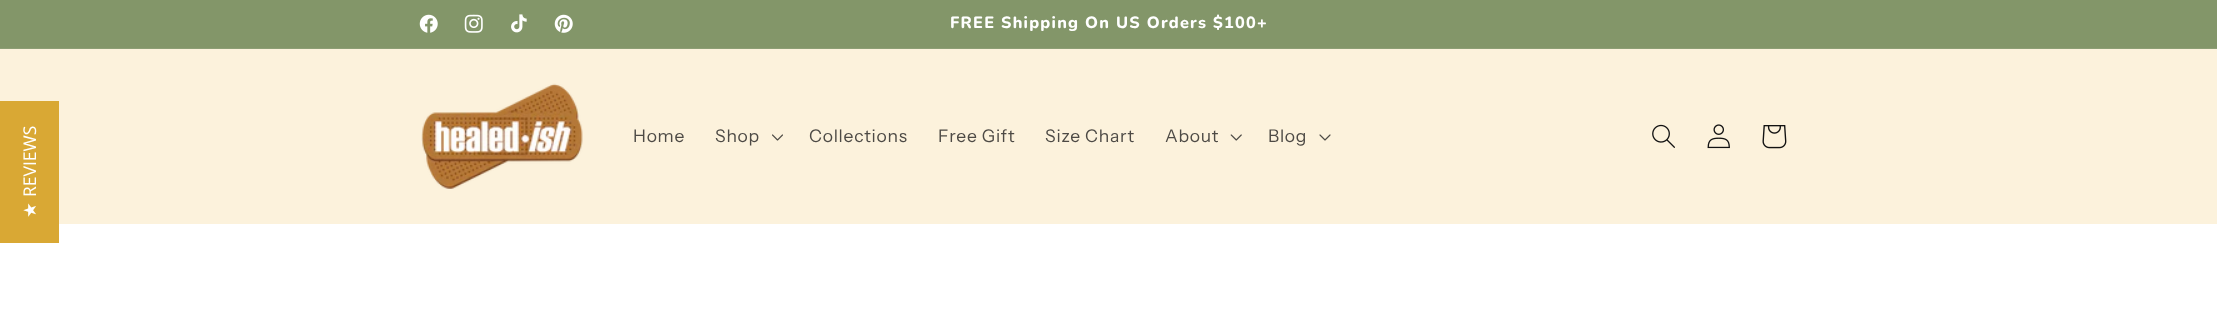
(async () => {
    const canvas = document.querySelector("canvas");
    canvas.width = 2217;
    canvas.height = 310;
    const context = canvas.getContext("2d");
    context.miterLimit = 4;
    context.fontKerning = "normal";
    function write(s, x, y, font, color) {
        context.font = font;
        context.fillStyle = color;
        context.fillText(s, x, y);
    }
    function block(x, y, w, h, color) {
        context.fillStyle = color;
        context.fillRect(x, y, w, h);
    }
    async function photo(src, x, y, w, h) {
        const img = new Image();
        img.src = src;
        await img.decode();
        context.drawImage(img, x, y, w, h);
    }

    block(0, 0, 2217, 310, "rgb(255, 255, 255)");
    block(0, 0, 2217, 48, "rgb(131, 150, 105)");
    block(0, 48, 2217, 1, "rgb(141, 158, 117)");
    await photo("media/1.png", 419, 14, 19, 19);
    await photo("media/2.png", 464, 14, 19, 19);
    await photo("media/3.png", 511, 14, 16, 19);
    await photo("media/4.png", 554, 14, 19, 19);
    context.letterSpacing = "1.25px";
    write("FREE Shipping On US Orders $100+", 950, 28, "800 16.25px Nunito", "rgb(255, 255, 255)");
    block(0, 49, 2217, 175, "rgb(252, 242, 220)");
    block(0, 101, 59, 142, "rgb(217, 168, 52)");
    context.letterSpacing = "0px";
    context.font = "17.5px Open Sans";
    context.fillStyle = "rgb(255, 255, 255)";
    context.save();
    context.translate(36, 197);
    context.rotate(-90 * Math.PI / 180);
    context.fillText("REVIEWS", 0, 0);
    context.restore();
    context.font = "17.5px DejaVu Sans";
    context.save();
    context.translate(36, 218);
    context.rotate(-90 * Math.PI / 180);
    context.fillText("★", 0, 0);
    context.restore();
    await photo("media/5.png", 421, 83, 162, 106);
    context.letterSpacing = "0.75px";
    write("Home", 633, 142, "17.5px Instrument Sans", "rgb(77, 74, 69)");
    write("Shop", 715, 142, "17.5px Instrument Sans", "rgb(77, 74, 69)");
    await photo("media/6.png", 772, 134, 11, 7);
    write("Collections", 809, 142, "17.5px Instrument Sans", "rgb(77, 74, 69)");
    write("Free Gift", 938, 142, "17.5px Instrument Sans", "rgb(77, 74, 69)");
    write("Size Chart", 1045, 142, "17.5px Instrument Sans", "rgb(77, 74, 69)");
    write("About", 1165, 142, "17.5px Instrument Sans", "rgb(77, 74, 69)");
    await photo("media/7.png", 1230, 134, 12, 7);
    write("Blog", 1268, 142, "17.5px Instrument Sans", "rgb(77, 74, 69)");
    await photo("media/8.png", 1319, 134, 12, 7);
    await photo("media/9.png", 1652, 124, 23, 24);
    await photo("media/10.png", 1707, 124, 23, 25);
    await photo("media/11.png", 1762, 125, 25, 24);
})();
